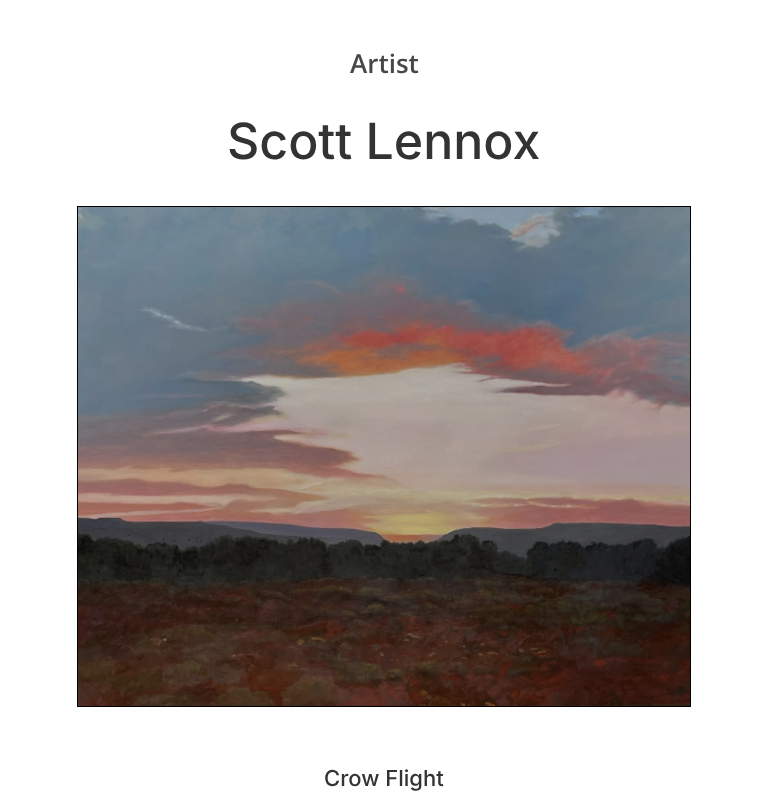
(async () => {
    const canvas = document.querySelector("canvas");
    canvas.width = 768;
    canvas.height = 798;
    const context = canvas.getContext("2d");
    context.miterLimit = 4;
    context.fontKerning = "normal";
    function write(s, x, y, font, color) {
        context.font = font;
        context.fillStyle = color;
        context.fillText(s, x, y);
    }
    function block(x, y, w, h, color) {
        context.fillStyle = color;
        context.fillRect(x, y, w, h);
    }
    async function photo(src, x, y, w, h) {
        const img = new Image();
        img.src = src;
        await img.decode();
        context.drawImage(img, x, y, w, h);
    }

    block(0, 0, 768, 798, "rgb(255, 255, 255)");
    write("Artist", 350, 73, "600 26px Open Sans", "rgb(72, 71, 71)");
    write("Scott Lennox", 227, 159, "500 50px Inter", "rgb(51, 51, 51)");
    context.strokeStyle = "rgb(0, 0, 0)";
    context.strokeRect(77.5, 206.5, 613, 500);
    await photo("media/1.png", 78, 207, 612, 499);
    write("Crow Flight", 324, 786, "500 22px Inter", "rgb(51, 51, 51)");
})();
